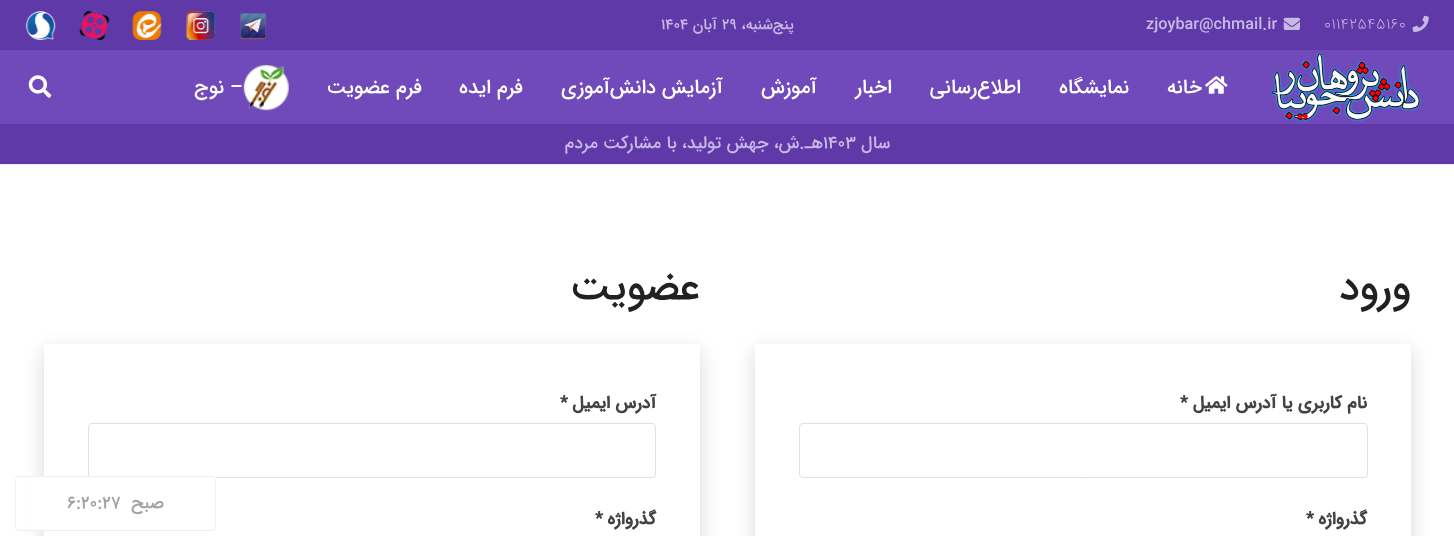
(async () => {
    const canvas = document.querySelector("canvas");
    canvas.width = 1454;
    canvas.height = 536;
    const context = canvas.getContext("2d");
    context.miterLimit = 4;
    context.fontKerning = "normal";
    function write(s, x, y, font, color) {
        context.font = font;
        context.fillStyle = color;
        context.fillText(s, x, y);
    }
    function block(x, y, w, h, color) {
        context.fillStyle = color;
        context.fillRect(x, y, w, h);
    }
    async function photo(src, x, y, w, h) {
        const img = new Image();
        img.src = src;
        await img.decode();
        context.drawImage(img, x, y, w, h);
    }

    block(0, 0, 1454, 536, "rgb(255, 255, 255)");
    block(0, 0, 1454, 50, "rgb(96, 57, 168)");
    await photo("media/1.png", 1412, 15, 17, 17);
    write("۰۱۱۴۲۵۴۵۱۶۰", 1324, 29, "200 16.25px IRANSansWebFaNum", "rgb(200, 184, 229)");
    await photo("media/2.png", 1283, 17, 17, 13);
    write("zjoybar@chmail.ir", 1146, 29, "500 16.25px IRANSansWebFaNum", "rgb(200, 184, 229)");
    context.direction = "rtl";
    write("پنج‌شنبه،", 794, 29, "500 15px IRANSansWebFaNum", "rgb(200, 184, 229)");
    context.direction = "ltr";
    write("۲۹", 722, 29, "500 15px IRANSansWebFaNum", "rgb(200, 184, 229)");
    context.direction = "rtl";
    write("آبان", 717, 29, "500 15px IRANSansWebFaNum", "rgb(200, 184, 229)");
    context.direction = "ltr";
    write("۱۴۰۴", 661, 29, "500 15px IRANSansWebFaNum", "rgb(200, 184, 229)");
    await photo("media/3.png", 240, 13, 27, 27);
    await photo("media/4.png", 186, 11, 30, 29);
    await photo("media/5.png", 132, 11, 30, 29);
    await photo("media/6.png", 79, 11, 31, 29);
    await photo("media/7.png", 26, 11, 30, 29);
    block(0, 50, 1454, 74, "rgb(112, 73, 186)");
    await photo("media/8.png", 1270, 52, 152, 70);
    await photo("media/9.png", 1205, 76, 23, 18);
    context.direction = "rtl";
    write("خانه", 1202, 93, "500 20px IRANSansWebFaNum", "rgb(255, 255, 255)");
    write("نمایشگاه", 1129, 93, "500 20px IRANSansWebFaNum", "rgb(255, 255, 255)");
    write("اطلاع‌رسانی", 1021, 93, "500 20px IRANSansWebFaNum", "rgb(255, 255, 255)");
    write("اخبار", 892, 93, "500 20px IRANSansWebFaNum", "rgb(255, 255, 255)");
    write("آموزش", 817, 93, "500 20px IRANSansWebFaNum", "rgb(255, 255, 255)");
    write("آزمایش دانش‌آموزی", 723, 93, "500 20px IRANSansWebFaNum", "rgb(255, 255, 255)");
    write("فرم ایده", 523, 93, "500 20px IRANSansWebFaNum", "rgb(255, 255, 255)");
    write("فرم عضویت", 422, 93, "500 20px IRANSansWebFaNum", "rgb(255, 255, 255)");
    await photo("media/10.png", 243, 65, 46, 46);
    write("– نوج", 243, 93, "500 20px IRANSansWebFaNum", "rgb(255, 255, 255)");
    await photo("media/11.png", 28, 75, 24, 23);
    block(0, 164, 1454, 1, "rgb(235, 235, 235)");
    block(0, 124, 1454, 40, "rgb(96, 57, 168)");
    write("سال", 890, 148, "500 17.5px IRANSansWebFaNum", "rgb(200, 184, 229)");
    context.direction = "ltr";
    write("۱۴۰۳", 823, 148, "500 17.5px IRANSansWebFaNum", "rgb(200, 184, 229)");
    context.direction = "rtl";
    write("هـ.ش، جهش تولید، با مشارکت مردم", 823, 148, "500 17.5px IRANSansWebFaNum", "rgb(200, 184, 229)");
    write("ورود", 1411, 299, "500 41px IRANSansWebFaNum", "rgb(33, 33, 33)");
    context.save();
    context.beginPath();
    context.moveTo(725, 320);
    context.lineTo(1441, 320);
    context.lineTo(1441, 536);
    context.lineTo(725, 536);
    context.closePath();
    context.moveTo(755, 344);
    context.lineTo(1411, 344);
    context.lineTo(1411, 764);
    context.lineTo(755, 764);
    context.closePath();
    context.clip("evenodd");
    context.fillStyle = "rgba(0, 0, 0, 0.15)";
    context.filter = "blur(9.5px)";
    context.beginPath();
    context.rect(755, 350, 656, 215);
    context.fill();
    context.filter = "none";
    context.restore();
    write("نام کاربری یا آدرس ایمیل", 1367, 408, "bold 17.5px IRANSansWebFaNum", "rgb(66, 66, 66)");
    context.direction = "ltr";
    write("*", 1180, 408, "bold 17.5px IRANSansWebFaNum", "rgb(66, 66, 66)");
    context.beginPath();
    context.roundRect(799.5, 423.5, 568, 54, 3.5);
    context.strokeStyle = "rgb(224, 224, 224)";
    context.stroke();
    context.direction = "rtl";
    write("گذرواژه", 1367, 524, "bold 17.5px IRANSansWebFaNum", "rgb(66, 66, 66)");
    context.direction = "ltr";
    write("*", 1306, 524, "bold 17.5px IRANSansWebFaNum", "rgb(66, 66, 66)");
    context.direction = "rtl";
    write("عضویت", 700, 299, "500 41px IRANSansWebFaNum", "rgb(33, 33, 33)");
    context.save();
    context.beginPath();
    context.moveTo(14, 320);
    context.lineTo(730, 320);
    context.lineTo(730, 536);
    context.lineTo(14, 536);
    context.closePath();
    context.moveTo(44, 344);
    context.lineTo(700, 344);
    context.lineTo(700, 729);
    context.lineTo(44, 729);
    context.closePath();
    context.clip("evenodd");
    context.fillStyle = "rgba(0, 0, 0, 0.15)";
    context.filter = "blur(9.5px)";
    context.beginPath();
    context.rect(44, 350, 656, 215);
    context.fill();
    context.filter = "none";
    context.restore();
    write("آدرس ایمیل", 656, 408, "bold 17.5px IRANSansWebFaNum", "rgb(66, 66, 66)");
    context.direction = "ltr";
    write("*", 560, 408, "bold 17.5px IRANSansWebFaNum", "rgb(66, 66, 66)");
    context.beginPath();
    context.roundRect(88.5, 423.5, 567, 54, 3.5);
    context.stroke();
    context.direction = "rtl";
    write("گذرواژه", 656, 524, "bold 17.5px IRANSansWebFaNum", "rgb(66, 66, 66)");
    context.direction = "ltr";
    write("*", 595, 524, "bold 17.5px IRANSansWebFaNum", "rgb(66, 66, 66)");
    block(30, 476, 186, 55, "rgb(255, 255, 255)");
    context.beginPath();
    context.roundRect(15.5, 476.5, 200, 54, 3.5);
    context.strokeStyle = "rgb(240, 240, 240)";
    context.stroke();
    context.direction = "rtl";
    write("صبح", 164, 508, "500 17.5px IRANSansWebFaNum", "rgb(161, 161, 161)");
    context.direction = "ltr";
    write("6:20:27", 67, 508, "500 17.5px IRANSansWebFaNum", "rgb(161, 161, 161)");
})();
